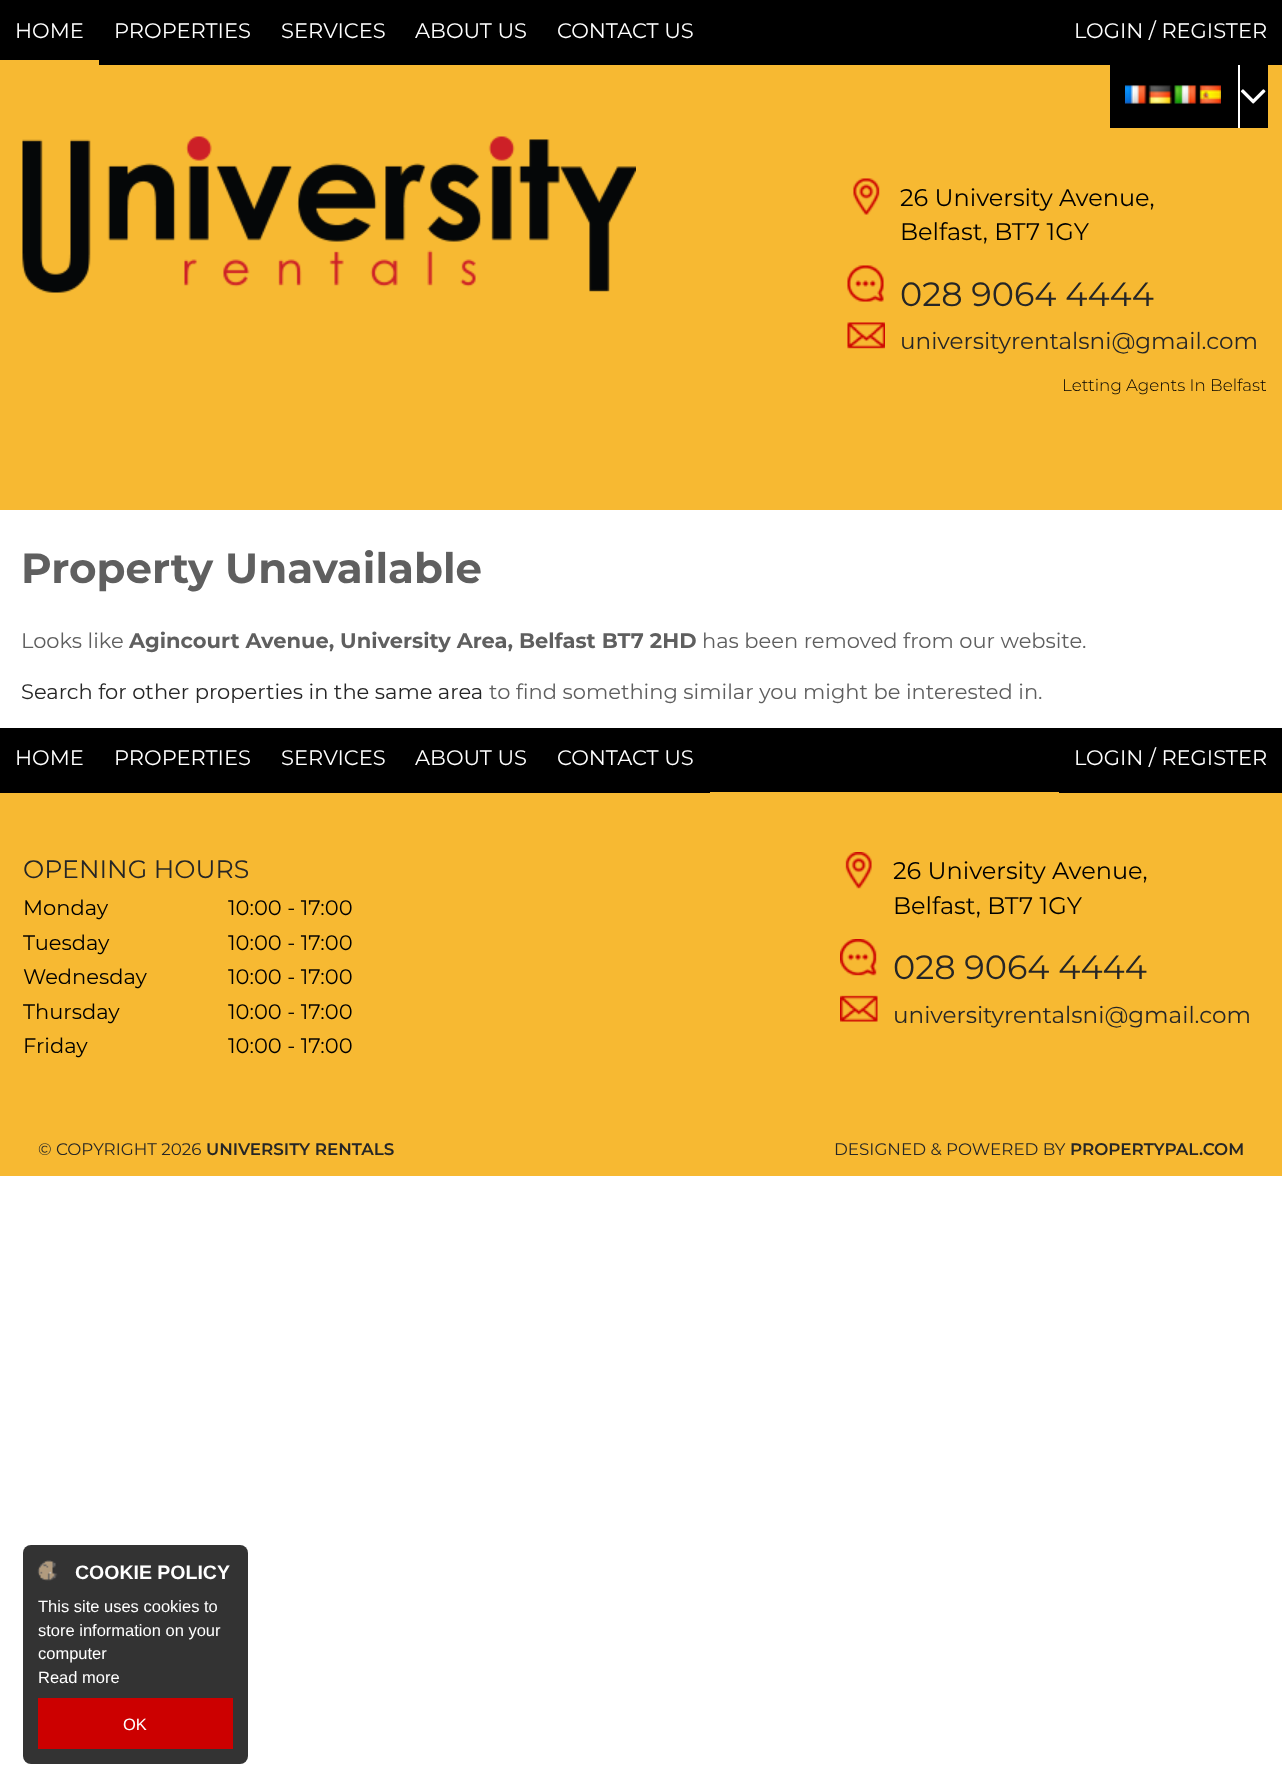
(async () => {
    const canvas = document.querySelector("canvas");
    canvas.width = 1282;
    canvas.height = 1786;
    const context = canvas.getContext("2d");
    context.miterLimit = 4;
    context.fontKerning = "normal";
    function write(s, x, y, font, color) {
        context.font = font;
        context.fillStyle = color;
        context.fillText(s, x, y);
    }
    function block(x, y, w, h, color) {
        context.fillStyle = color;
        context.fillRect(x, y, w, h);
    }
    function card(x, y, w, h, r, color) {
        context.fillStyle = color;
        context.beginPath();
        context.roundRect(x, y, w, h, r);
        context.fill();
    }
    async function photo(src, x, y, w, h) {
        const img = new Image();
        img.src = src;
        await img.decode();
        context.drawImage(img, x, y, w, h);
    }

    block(0, 0, 1282, 1786, "rgb(255, 255, 255)");
    block(0, 0, 1282, 65, "rgb(0, 0, 0)");
    block(0, 60, 99, 5, "rgb(247, 185, 50)");
    write("HOME", 15, 38, "21px Montserrat", "rgb(255, 255, 255)");
    write("PROPERTIES", 114, 38, "21px Montserrat", "rgb(255, 255, 255)");
    write("SERVICES", 281, 38, "21px Montserrat", "rgb(255, 255, 255)");
    write("ABOUT US", 415, 38, "21px Montserrat", "rgb(255, 255, 255)");
    write("CONTACT US", 557, 38, "21px Montserrat", "rgb(255, 255, 255)");
    write("LOGIN / REGISTER", 1074, 38, "21px Montserrat", "rgb(255, 255, 255)");
    block(0, 65, 1282, 445, "rgb(247, 185, 50)");
    block(1110, 65, 158, 63, "rgb(0, 0, 0)");
    await photo("media/1.png", 1125, 85, 96, 19);
    block(1238, 65, 2, 63, "rgb(255, 255, 255)");
    await photo("media/2.png", 1240, 89, 26, 15);
    await photo("media/3.png", 22, 136, 614, 157);
    await photo("media/4.png", 853, 178, 27, 37);
    write("26 University Avenue,", 900, 206, "24px Montserrat", "rgb(0, 0, 0)");
    write("Belfast, BT7 1GY", 900, 240, "24px Montserrat", "rgb(0, 0, 0)");
    await photo("media/5.png", 847, 265, 37, 37);
    write("028 9064 4444", 900, 306, "33.5px Montserrat", "rgb(38, 38, 38)");
    await photo("media/6.png", 847, 322, 38, 27);
    write("universityrentalsni@gmail.com", 900, 349, "23.1px Montserrat", "rgb(38, 38, 38)");
    write("Letting Agents In Belfast", 1062, 391, "300 16.75px Montserrat", "rgb(0, 0, 0)");
    write("Property Unavailable", 21, 583, "bold 42px Montserrat", "rgb(95, 95, 95)");
    write("Looks like", 21, 648, "21px Montserrat", "rgb(95, 95, 95)");
    write("Agincourt Avenue, University Area, Belfast BT7 2HD", 129, 648, "bold 21px Montserrat", "rgb(95, 95, 95)");
    write("has been removed from our website.", 702, 648, "21px Montserrat", "rgb(95, 95, 95)");
    write("Search for other properties in the same area", 21, 699, "21px Montserrat", "rgb(38, 38, 38)");
    write("to find something similar you might be interested in.", 489, 699, "21px Montserrat", "rgb(95, 95, 95)");
    block(0, 728, 1282, 64, "rgb(0, 0, 0)");
    block(0, 792, 1282, 384, "rgb(247, 185, 50)");
    block(0, 792, 710, 1, "rgb(0, 0, 0)");
    write("HOME", 15, 765, "21px Montserrat", "rgb(255, 255, 255)");
    write("PROPERTIES", 114, 765, "21px Montserrat", "rgb(255, 255, 255)");
    write("SERVICES", 281, 765, "21px Montserrat", "rgb(255, 255, 255)");
    write("ABOUT US", 415, 765, "21px Montserrat", "rgb(255, 255, 255)");
    write("CONTACT US", 557, 765, "21px Montserrat", "rgb(255, 255, 255)");
    block(1059, 792, 223, 1, "rgb(0, 0, 0)");
    write("LOGIN / REGISTER", 1074, 765, "21px Montserrat", "rgb(255, 255, 255)");
    write("OPENING HOURS", 23, 878, "25.25px Montserrat", "rgb(38, 38, 38)");
    write("Monday", 23, 915, "21px Montserrat", "rgb(0, 0, 0)");
    write("10:00 - 17:00", 228, 915, "21px Montserrat", "rgb(0, 0, 0)");
    write("Tuesday", 23, 950, "21px Montserrat", "rgb(0, 0, 0)");
    write("10:00 - 17:00", 228, 950, "21px Montserrat", "rgb(0, 0, 0)");
    write("Wednesday", 23, 984, "21px Montserrat", "rgb(0, 0, 0)");
    write("10:00 - 17:00", 228, 984, "21px Montserrat", "rgb(0, 0, 0)");
    write("Thursday", 23, 1019, "21px Montserrat", "rgb(0, 0, 0)");
    write("10:00 - 17:00", 228, 1019, "21px Montserrat", "rgb(0, 0, 0)");
    write("Friday", 23, 1053, "21px Montserrat", "rgb(0, 0, 0)");
    write("10:00 - 17:00", 228, 1053, "21px Montserrat", "rgb(0, 0, 0)");
    await photo("media/7.png", 845, 852, 27, 37);
    write("26 University Avenue,", 893, 879, "24px Montserrat", "rgb(0, 0, 0)");
    write("Belfast, BT7 1GY", 893, 914, "24px Montserrat", "rgb(0, 0, 0)");
    await photo("media/8.png", 840, 939, 37, 37);
    write("028 9064 4444", 893, 979, "33.5px Montserrat", "rgb(38, 38, 38)");
    await photo("media/9.png", 840, 995, 38, 27);
    write("universityrentalsni@gmail.com", 893, 1023, "23.1px Montserrat", "rgb(38, 38, 38)");
    write("© COPYRIGHT 2026", 38, 1155, "16.75px Montserrat", "rgb(38, 38, 38)");
    write("UNIVERSITY RENTALS", 206, 1155, "600 16.75px Montserrat", "rgb(38, 38, 38)");
    write("DESIGNED & POWERED BY", 834, 1155, "16.75px Montserrat", "rgb(38, 38, 38)");
    write("PROPERTYPAL.COM", 1070, 1155, "600 16.75px Montserrat", "rgb(38, 38, 38)");
    card(23, 1545, 225, 219, 8, "rgb(51, 51, 51)");
    await photo("media/10.png", 37, 1560, 21, 21);
    write("COOKIE POLICY", 75, 1579, "bold 19.5px Liberation Sans", "rgb(255, 255, 255)");
    write("This site uses cookies to", 38, 1612, "16.5px Liberation Sans", "rgb(255, 255, 255)");
    write("store information on your", 38, 1636, "16.5px Liberation Sans", "rgb(255, 255, 255)");
    write("computer", 38, 1659, "16.5px Liberation Sans", "rgb(255, 255, 255)");
    write("Read more", 38, 1683, "16.5px Liberation Sans", "rgb(255, 255, 255)");
    block(38, 1698, 195, 51, "rgb(204, 0, 0)");
    write("OK", 123, 1730, "16.5px Liberation Sans", "rgb(255, 255, 255)");
})();
